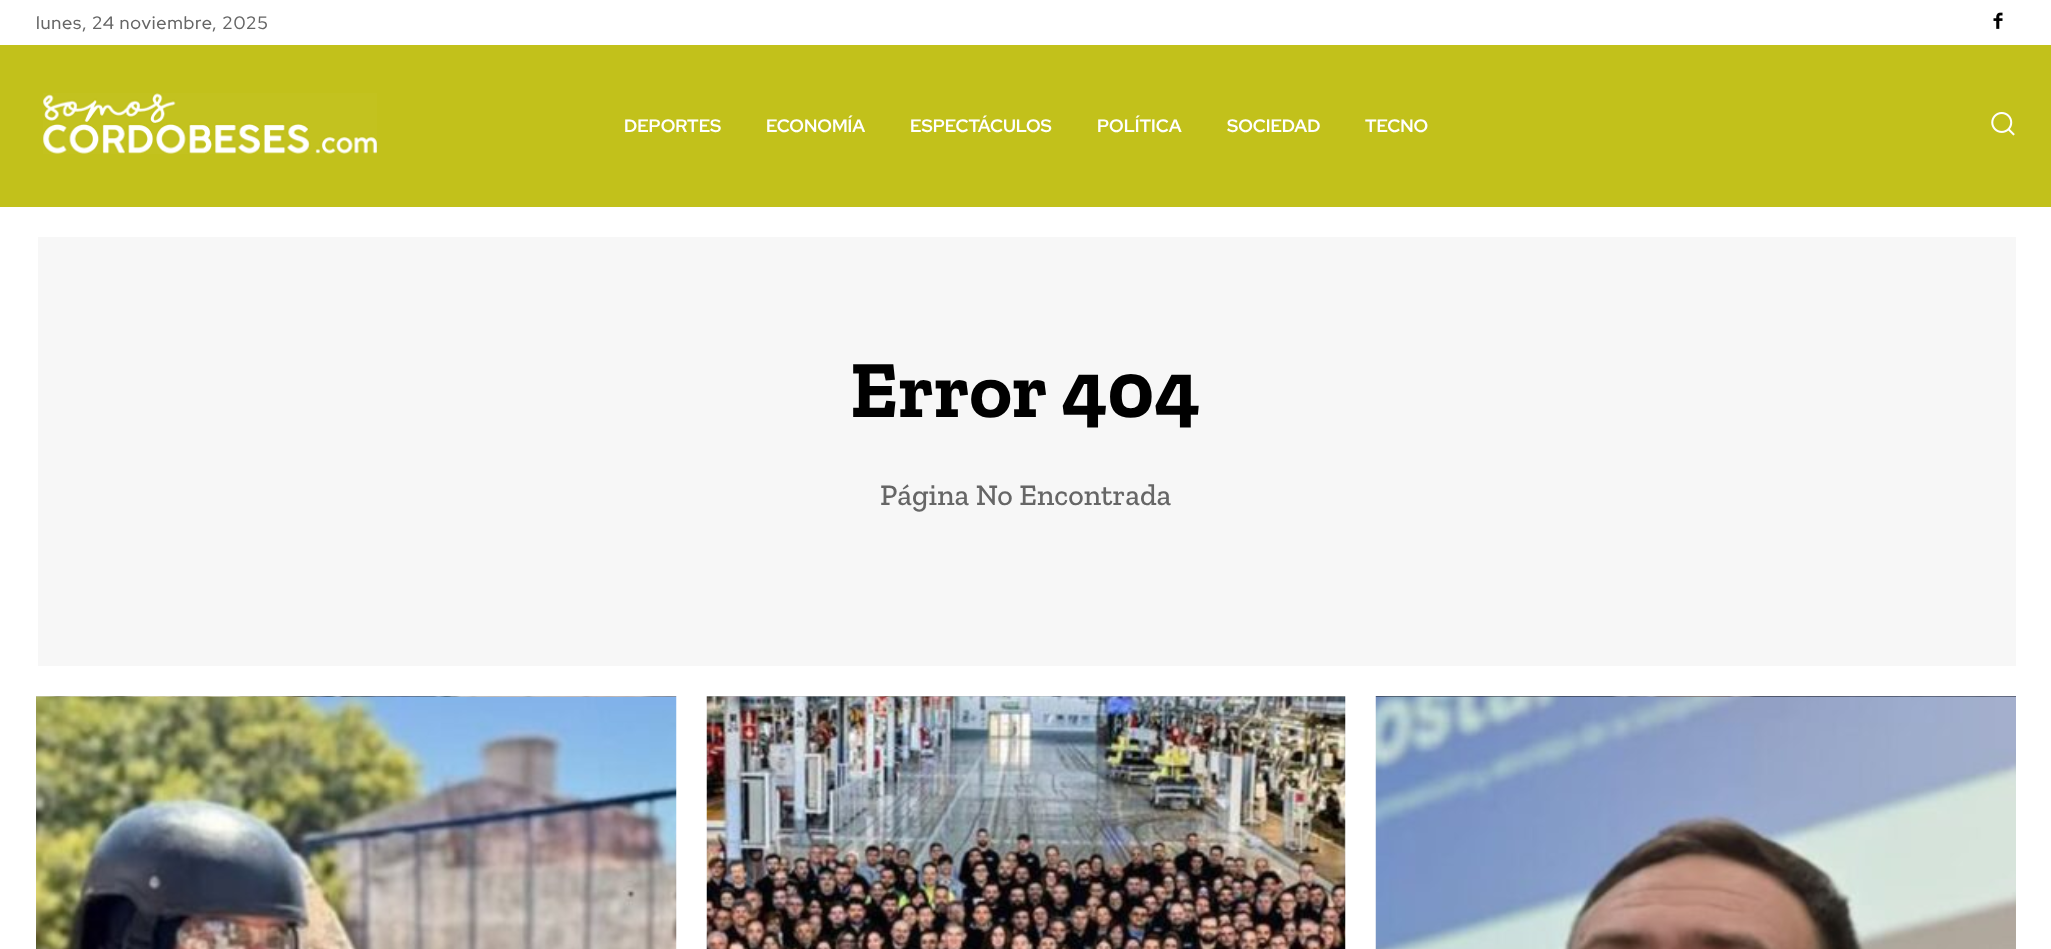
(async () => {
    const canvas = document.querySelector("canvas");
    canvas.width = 2051;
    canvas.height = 949;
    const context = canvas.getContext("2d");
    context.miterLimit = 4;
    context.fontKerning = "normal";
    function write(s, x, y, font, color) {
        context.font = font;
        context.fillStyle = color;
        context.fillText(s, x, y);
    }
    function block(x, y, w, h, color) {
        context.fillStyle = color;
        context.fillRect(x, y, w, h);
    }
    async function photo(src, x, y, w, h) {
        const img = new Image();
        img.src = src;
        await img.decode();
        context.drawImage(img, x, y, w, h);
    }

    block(0, 0, 2051, 949, "rgb(255, 255, 255)");
    context.letterSpacing = "0.75px";
    write("lunes, 24 noviembre, 2025", 36, 29, "500 18px Red Hat Display", "rgb(102, 102, 102)");
    await photo("media/1.png", 1993, 12, 10, 17);
    block(0, 45, 2051, 162, "rgb(194, 193, 27)");
    await photo("media/2.png", 43, 93, 334, 61);
    context.letterSpacing = "0px";
    write("DEPORTES", 624, 132, "bold 18px Red Hat Display", "rgb(255, 255, 255)");
    write("ECONOMÍA", 766, 132, "bold 18px Red Hat Display", "rgb(255, 255, 255)");
    write("ESPECTÁCULOS", 910, 132, "bold 18px Red Hat Display", "rgb(255, 255, 255)");
    write("POLÍTICA", 1097, 132, "bold 18px Red Hat Display", "rgb(255, 255, 255)");
    write("SOCIEDAD", 1227, 132, "bold 18px Red Hat Display", "rgb(255, 255, 255)");
    write("TECNO", 1365, 132, "bold 18px Red Hat Display", "rgb(255, 255, 255)");
    await photo("media/3.png", 1991, 112, 24, 24);
    block(38, 237, 1978, 429, "rgb(247, 247, 247)");
    write("Error 404", 850, 417, "bold 81px Zilla Slab", "rgb(0, 0, 0)");
    write("Página No Encontrada", 880, 505, "500 30px Zilla Slab", "rgb(102, 102, 102)");
    await photo("media/4.png", 36, 696, 641, 253);
    await photo("media/5.png", 706, 696, 640, 253);
    await photo("media/6.png", 1375, 696, 641, 253);
})();
